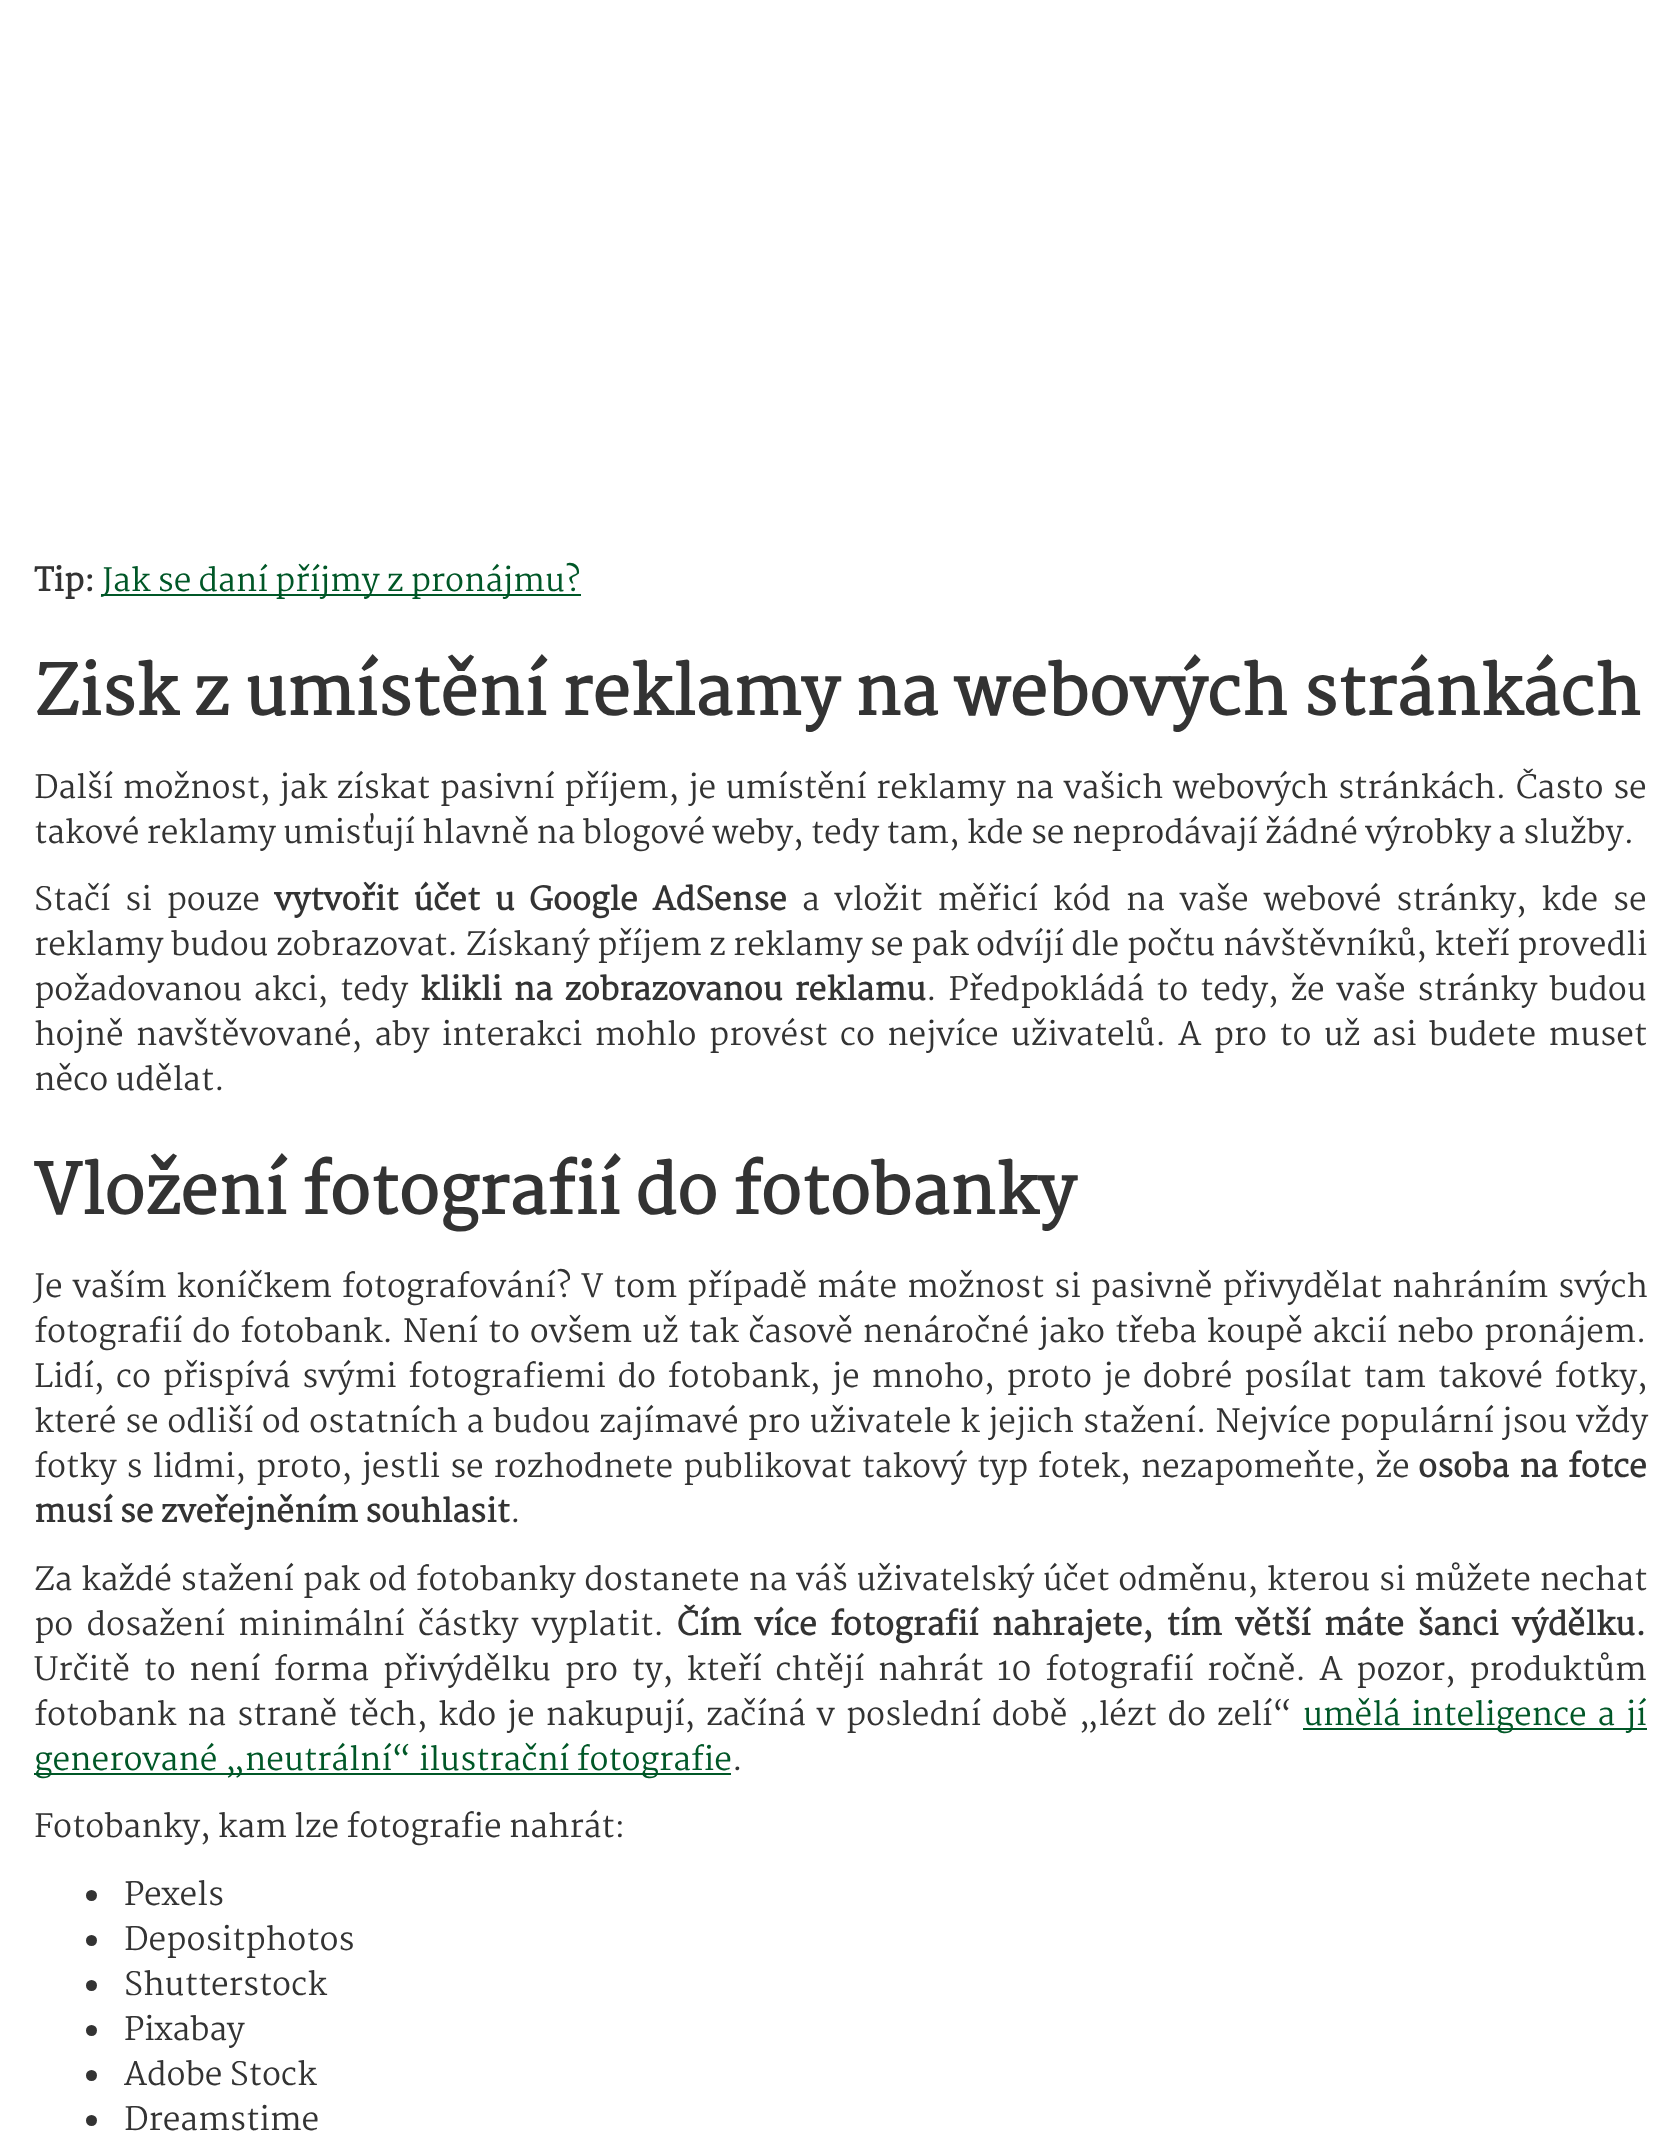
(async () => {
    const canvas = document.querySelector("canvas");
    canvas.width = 1680;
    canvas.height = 2155;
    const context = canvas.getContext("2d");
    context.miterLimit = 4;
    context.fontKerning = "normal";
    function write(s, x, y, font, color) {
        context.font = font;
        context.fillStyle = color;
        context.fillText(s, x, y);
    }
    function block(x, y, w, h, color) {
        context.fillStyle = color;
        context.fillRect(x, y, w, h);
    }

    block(0, 0, 1680, 2155, "rgb(255, 255, 255)");
    write("Tip:", 34, 591, "bold 31.5px Martel", "rgb(51, 51, 51)");
    block(101, 594, 480, 2, "rgb(0, 87, 39)");
    write("Jak se daní příjmy z pronájmu?", 102, 591, "31.5px Martel", "rgb(0, 87, 39)");
    write("Zisk z umístění reklamy na webových stránkách", 34, 715, "bold 67.5px Martel", "rgb(51, 51, 51)");
    context.wordSpacing = "2.25px";
    write("Další možnost, jak získat pasivní příjem, je umístění reklamy na vašich webových stránkách. Často se", 34, 798, "31.5px Martel", "rgb(51, 51, 51)");
    context.wordSpacing = "0px";
    write("takové reklamy umisťují hlavně na blogové weby, tedy tam, kde se neprodávají žádné výrobky a služby.", 34, 843, "31.5px Martel", "rgb(51, 51, 51)");
    context.wordSpacing = "7.5px";
    write("Stačí si pouze", 34, 910, "31.5px Martel", "rgb(51, 51, 51)");
    write("vytvořit účet u Google AdSense", 274, 910, "bold 31.5px Martel", "rgb(51, 51, 51)");
    write("a vložit měřicí kód na vaše webové stránky, kde se", 802, 910, "31.5px Martel", "rgb(51, 51, 51)");
    context.wordSpacing = "0.25px";
    write("reklamy budou zobrazovat. Získaný příjem z reklamy se pak odvíjí dle počtu návštěvníků, kteří provedli", 34, 955, "31.5px Martel", "rgb(51, 51, 51)");
    context.wordSpacing = "4.5px";
    write("požadovanou akci, tedy", 34, 1000, "31.5px Martel", "rgb(51, 51, 51)");
    write("klikli na zobrazovanou reklamu", 420, 1000, "bold 31.5px Martel", "rgb(51, 51, 51)");
    write(". Předpokládá to tedy, že vaše stránky budou", 926, 1000, "31.5px Martel", "rgb(51, 51, 51)");
    context.wordSpacing = "5px";
    write("hojně navštěvované, aby interakci mohlo provést co nejvíce uživatelů. A pro to už asi budete muset", 34, 1045, "31.5px Martel", "rgb(51, 51, 51)");
    context.wordSpacing = "0px";
    write("něco udělat.", 34, 1090, "31.5px Martel", "rgb(51, 51, 51)");
    write("Vložení fotografií do fotobanky", 34, 1214, "bold 67.5px Martel", "rgb(51, 51, 51)");
    context.wordSpacing = "2.6px";
    write("Je vaším koníčkem fotografování? V tom případě máte možnost si pasivně přivydělat nahráním svých", 34, 1297, "31.5px Martel", "rgb(51, 51, 51)");
    context.wordSpacing = "2.5px";
    write("fotografií do fotobank. Není to ovšem už tak časově nenáročné jako třeba koupě akcií nebo pronájem.", 34, 1342, "31.5px Martel", "rgb(51, 51, 51)");
    context.wordSpacing = "4.4px";
    write("Lidí, co přispívá svými fotografiemi do fotobank, je mnoho, proto je dobré posílat tam takové fotky,", 34, 1387, "31.5px Martel", "rgb(51, 51, 51)");
    context.wordSpacing = "1.4px";
    write("které se odliší od ostatních a budou zajímavé pro uživatele k jejich stažení. Nejvíce populární jsou vždy", 34, 1432, "31.5px Martel", "rgb(51, 51, 51)");
    context.wordSpacing = "2.6px";
    write("fotky s lidmi, proto, jestli se rozhodnete publikovat takový typ fotek, nezapomeňte, že", 34, 1477, "31.5px Martel", "rgb(51, 51, 51)");
    write("osoba na fotce", 1418, 1477, "bold 31.5px Martel", "rgb(51, 51, 51)");
    context.wordSpacing = "0px";
    write("musí se zveřejněním souhlasit", 34, 1522, "bold 31.5px Martel", "rgb(51, 51, 51)");
    write(".", 510, 1522, "31.5px Martel", "rgb(51, 51, 51)");
    context.wordSpacing = "1.4px";
    write("Za každé stažení pak od fotobanky dostanete na váš uživatelský účet odměnu, kterou si můžete nechat", 34, 1590, "31.5px Martel", "rgb(51, 51, 51)");
    context.wordSpacing = "6px";
    write("po dosažení minimální částky vyplatit.", 34, 1635, "31.5px Martel", "rgb(51, 51, 51)");
    write("Čím více fotografií nahrajete, tím větší máte šanci výdělku.", 677, 1635, "bold 31.5px Martel", "rgb(51, 51, 51)");
    context.wordSpacing = "6.25px";
    write("Určitě to není forma přivýdělku pro ty, kteří chtějí nahrát 10 fotografií ročně. A pozor, produktům", 34, 1680, "31.5px Martel", "rgb(51, 51, 51)");
    context.wordSpacing = "3.6px";
    write("fotobank na straně těch, kdo je nakupují, začíná v poslední době „lézt do zelí“", 34, 1725, "31.5px Martel", "rgb(51, 51, 51)");
    block(1303, 1728, 344, 2, "rgb(0, 87, 39)");
    write("umělá inteligence a jí", 1303, 1725, "31.5px Martel", "rgb(0, 87, 39)");
    block(34, 1773, 697, 2, "rgb(0, 87, 39)");
    context.wordSpacing = "0px";
    write("generované „neutrální“ ilustrační fotografie", 34, 1770, "31.5px Martel", "rgb(0, 87, 39)");
    write(".", 732, 1770, "31.5px Martel", "rgb(51, 51, 51)");
    write("Fotobanky, kam lze fotografie nahrát:", 34, 1837, "31.5px Martel", "rgb(51, 51, 51)");
    context.beginPath();
    context.arc(91.5, 1895.5, 5.5, 0, Math.PI * 2);
    context.fill();
    write("Pexels", 124, 1905, "31.5px Martel", "rgb(51, 51, 51)");
    context.beginPath();
    context.arc(91.5, 1940.5, 5.5, 0, Math.PI * 2);
    context.fill();
    write("Depositphotos", 124, 1950, "31.5px Martel", "rgb(51, 51, 51)");
    context.beginPath();
    context.arc(91.5, 1985.5, 5.5, 0, Math.PI * 2);
    context.fill();
    write("Shutterstock", 124, 1995, "31.5px Martel", "rgb(51, 51, 51)");
    context.beginPath();
    context.arc(91.5, 2030.5, 5.5, 0, Math.PI * 2);
    context.fill();
    write("Pixabay", 124, 2040, "31.5px Martel", "rgb(51, 51, 51)");
    context.beginPath();
    context.arc(91.5, 2075.5, 5.5, 0, Math.PI * 2);
    context.fill();
    write("Adobe Stock", 124, 2085, "31.5px Martel", "rgb(51, 51, 51)");
    context.beginPath();
    context.arc(91.5, 2120.5, 5.5, 0, Math.PI * 2);
    context.fill();
    write("Dreamstime", 124, 2130, "31.5px Martel", "rgb(51, 51, 51)");
})();
